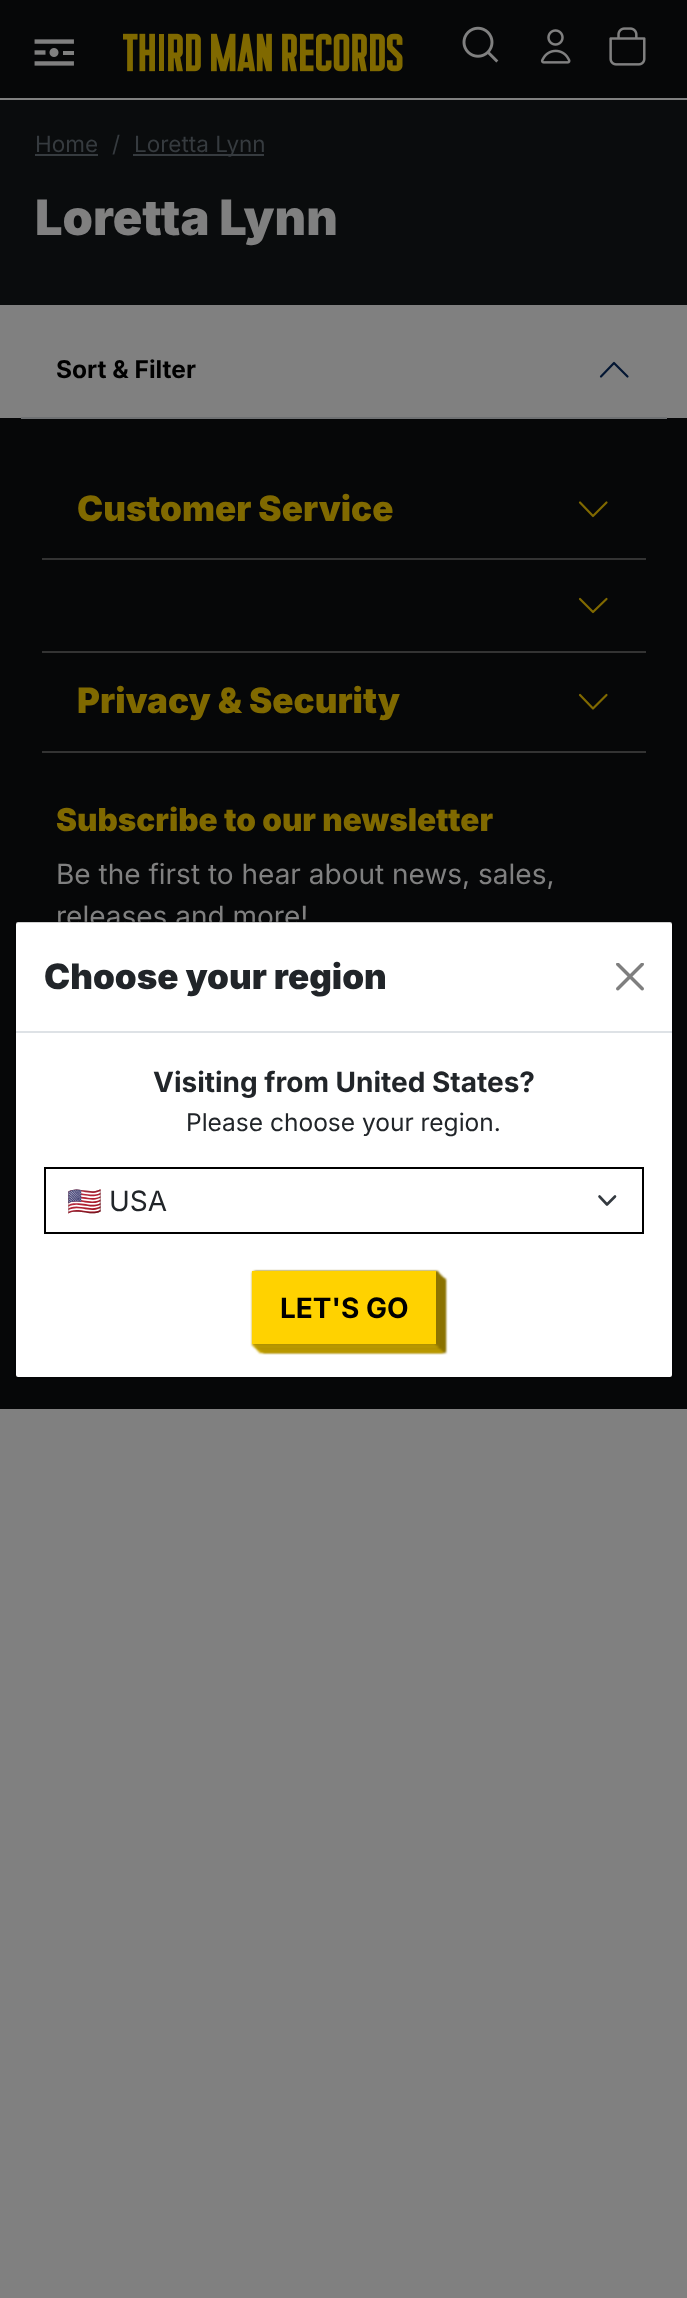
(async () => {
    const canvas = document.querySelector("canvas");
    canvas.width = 687;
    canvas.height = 2298;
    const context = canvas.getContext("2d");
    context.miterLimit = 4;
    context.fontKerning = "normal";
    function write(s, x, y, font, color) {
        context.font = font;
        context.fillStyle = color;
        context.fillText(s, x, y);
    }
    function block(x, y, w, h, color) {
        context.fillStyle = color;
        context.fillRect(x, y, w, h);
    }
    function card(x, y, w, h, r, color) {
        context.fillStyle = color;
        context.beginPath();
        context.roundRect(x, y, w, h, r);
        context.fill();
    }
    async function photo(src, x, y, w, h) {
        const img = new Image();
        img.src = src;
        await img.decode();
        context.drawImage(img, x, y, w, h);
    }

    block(0, 0, 687, 2298, "rgb(128, 128, 128)");
    block(0, 0, 687, 98, "rgb(6, 7, 8)");
    await photo("media/1.png", 34, 39, 40, 27);
    await photo("media/2.png", 123, 33, 280, 39);
    await photo("media/3.png", 462, 26, 37, 37);
    await photo("media/4.png", 540, 29, 31, 35);
    await photo("media/5.png", 609, 27, 37, 39);
    block(0, 100, 687, 205, "rgb(10, 12, 13)");
    write("Home", 35, 152, "22.5px Inter", "rgb(54, 59, 63)");
    block(35, 154, 63, 2, "rgb(54, 59, 63)");
    write("/", 112, 152, "22.5px Inter", "rgb(54, 59, 63)");
    block(133, 154, 131, 2, "rgb(54, 59, 63)");
    write("Loretta Lynn", 134, 152, "22.5px Inter", "rgb(54, 59, 63)");
    write("Loretta Lynn", 35, 235, "900 48.75px Inter", "rgb(128, 128, 128)");
    block(0, 418, 687, 991, "rgb(6, 7, 8)");
    block(21, 417, 646, 2, "rgb(111, 113, 115)");
    write("Sort & Filter", 56, 378, "bold 24.5px Inter", "rgb(0, 0, 0)");
    context.beginPath();
    context.moveTo(627.5, 376.5);
    context.lineTo(614, 363);
    context.lineTo(601, 376.5);
    context.strokeStyle = "rgb(3, 22, 51)";
    context.lineWidth = 2.2;
    context.lineCap = "round";
    context.lineJoin = "round";
    context.stroke();
    block(42, 558, 604, 2, "rgb(51, 51, 51)");
    write("Customer Service", 77, 521, "900 35px Inter", "rgb(128, 105, 0)");
    context.beginPath();
    context.moveTo(580, 502.5);
    context.lineTo(593, 516);
    context.lineTo(606.5, 502.5);
    context.strokeStyle = "rgb(128, 105, 0)";
    context.stroke();
    block(42, 651, 604, 2, "rgb(51, 51, 51)");
    context.beginPath();
    context.moveTo(580, 599);
    context.lineTo(593, 612);
    context.lineTo(606.5, 599);
    context.stroke();
    block(42, 751, 604, 2, "rgb(51, 51, 51)");
    write("Privacy & Security", 77, 713, "900 35px Inter", "rgb(128, 105, 0)");
    context.beginPath();
    context.moveTo(580, 695);
    context.lineTo(593, 708.5);
    context.lineTo(606.5, 695);
    context.stroke();
    write("Subscribe to our newsletter", 56, 831, "900 31.5px Inter", "rgb(128, 105, 0)");
    write("Be the first to hear about news, sales,", 56, 884, "28px Inter", "rgb(128, 128, 128)");
    write("releases and more!", 56, 926, "28px Inter", "rgb(128, 128, 128)");
    card(16, 922, 656, 455, 2, "rgb(255, 255, 255)");
    context.beginPath();
    context.roundRect(15, 922, 658, 456, 3);
    context.strokeStyle = "rgba(0, 0, 0, 0.18)";
    context.lineWidth = 2;
    context.lineJoin = "miter";
    context.stroke();
    block(16, 1031, 656, 2, "rgb(222, 226, 230)");
    write("Choose your region", 44, 989, "900 35px Inter", "rgb(33, 37, 41)");
    await photo("media/6.png", 616, 963, 28, 28);
    write("Visiting from United States?", 153, 1092, "bold 28px Inter", "rgb(33, 37, 41)");
    write("Please choose your region.", 186, 1131, "24.5px Inter", "rgb(33, 37, 41)");
    context.beginPath();
    context.moveTo(599.5, 1196.5);
    context.lineTo(607, 1204.5);
    context.lineTo(615, 1196.5);
    context.strokeStyle = "rgb(52, 58, 64)";
    context.lineWidth = 2.6;
    context.lineJoin = "round";
    context.stroke();
    context.strokeStyle = "rgb(0, 0, 0)";
    context.lineWidth = 2;
    context.lineJoin = "miter";
    context.strokeRect(45, 1168, 598, 65);
    context.save();
    context.beginPath();
    context.rect(67, 1180, 512, 42);
    context.clip();
    write("🇺🇸", 67, 1211, "28px Noto Color Emoji", "rgb(33, 37, 41)");
    context.restore();
    write("USA", 109, 1211, "28px Inter", "rgb(33, 37, 41)");
    context.fillStyle = "rgb(138, 113, 0)";
    context.filter = "blur(1px)";
    context.beginPath();
    context.rect(263, 1279, 183, 74);
    context.fill();
    context.filter = "none";
    context.fillStyle = "rgb(201, 166, 0)";
    context.filter = "blur(1px)";
    context.beginPath();
    context.rect(259, 1279, 184, 74);
    context.fill();
    context.filter = "none";
    context.fillStyle = "rgb(138, 113, 0)";
    context.filter = "blur(1px)";
    context.beginPath();
    context.rect(261, 1278, 184, 73);
    context.fill();
    context.filter = "none";
    context.fillStyle = "rgb(201, 166, 0)";
    context.filter = "blur(1px)";
    context.beginPath();
    context.rect(257, 1278, 184, 73);
    context.fill();
    context.filter = "none";
    context.fillStyle = "rgb(138, 113, 0)";
    context.filter = "blur(1px)";
    context.beginPath();
    context.rect(259, 1276, 184, 73);
    context.fill();
    context.filter = "none";
    context.fillStyle = "rgb(201, 166, 0)";
    context.filter = "blur(1px)";
    context.beginPath();
    context.rect(256, 1276, 183, 73);
    context.fill();
    context.filter = "none";
    context.fillStyle = "rgb(138, 113, 0)";
    context.filter = "blur(1px)";
    context.beginPath();
    context.rect(257, 1274, 184, 74);
    context.fill();
    context.filter = "none";
    context.fillStyle = "rgb(201, 166, 0)";
    context.filter = "blur(1px)";
    context.beginPath();
    context.rect(254, 1274, 184, 74);
    context.fill();
    context.filter = "none";
    context.fillStyle = "rgb(138, 113, 0)";
    context.filter = "blur(1px)";
    context.beginPath();
    context.rect(256, 1272, 183, 74);
    context.fill();
    context.filter = "none";
    context.fillStyle = "rgb(201, 166, 0)";
    context.filter = "blur(1px)";
    context.beginPath();
    context.rect(252, 1272, 184, 74);
    context.fill();
    context.filter = "none";
    context.fillStyle = "rgb(138, 113, 0)";
    context.filter = "blur(1px)";
    context.beginPath();
    context.rect(254, 1271, 184, 73);
    context.fill();
    context.filter = "none";
    block(252, 1271, 184, 73, "rgb(255, 210, 0)");
    write("LET'S GO", 280, 1318, "bold 28px Inter", "rgb(0, 0, 0)");
})();
